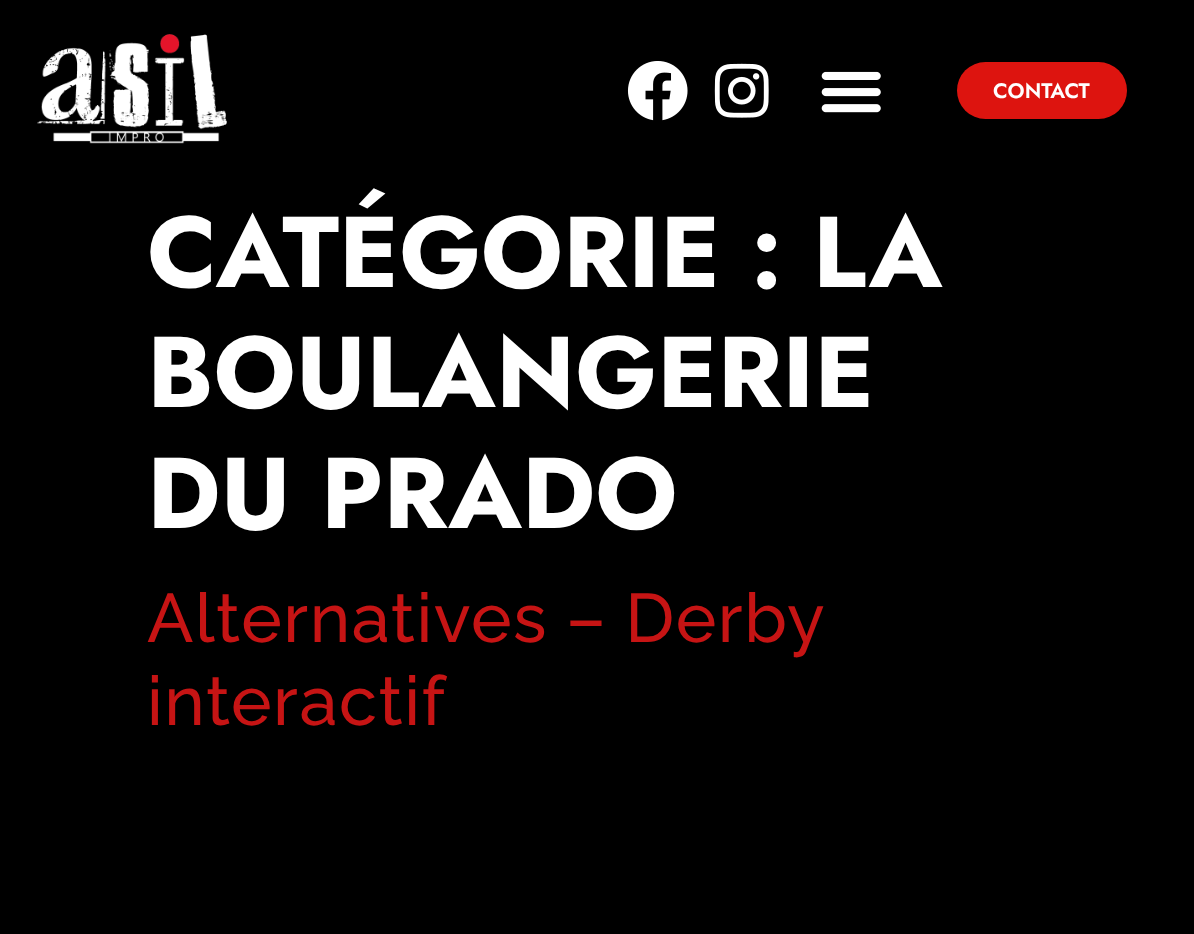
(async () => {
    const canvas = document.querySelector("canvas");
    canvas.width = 1194;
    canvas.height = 934;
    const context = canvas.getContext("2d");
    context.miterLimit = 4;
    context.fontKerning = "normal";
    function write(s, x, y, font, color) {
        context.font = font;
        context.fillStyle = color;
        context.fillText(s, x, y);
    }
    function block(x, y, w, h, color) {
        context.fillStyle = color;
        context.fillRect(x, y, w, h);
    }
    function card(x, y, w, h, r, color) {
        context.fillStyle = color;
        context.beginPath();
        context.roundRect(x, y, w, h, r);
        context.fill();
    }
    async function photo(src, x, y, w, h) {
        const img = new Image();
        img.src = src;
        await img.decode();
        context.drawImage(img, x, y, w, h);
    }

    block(0, 0, 1194, 934, "rgb(0, 0, 0)");
    await photo("media/1.png", 37, 34, 190, 110);
    await photo("media/2.png", 627, 61, 61, 60);
    await photo("media/3.png", 714, 63, 55, 55);
    await photo("media/4.png", 821, 71, 60, 42);
    card(957, 62, 170, 57, 28.5, "rgb(221, 20, 15)");
    write("CONTACT", 993, 98, "600 21px Jost", "rgb(255, 255, 255)");
    write("CATÉGORIE : LA", 147, 287, "bold 100.25px Jost", "rgb(255, 255, 255)");
    write("BOULANGERIE", 147, 407, "bold 100.25px Jost", "rgb(255, 255, 255)");
    write("DU PRADO", 147, 528, "bold 100.25px Jost", "rgb(255, 255, 255)");
    context.letterSpacing = "1.5px";
    context.wordSpacing = "-1px";
    write("Alternatives – Derby", 147, 642, "500 68.6px Raleway", "rgb(198, 20, 20)");
    context.wordSpacing = "0px";
    write("interactif", 147, 725, "500 68.6px Raleway", "rgb(198, 20, 20)");
})();
